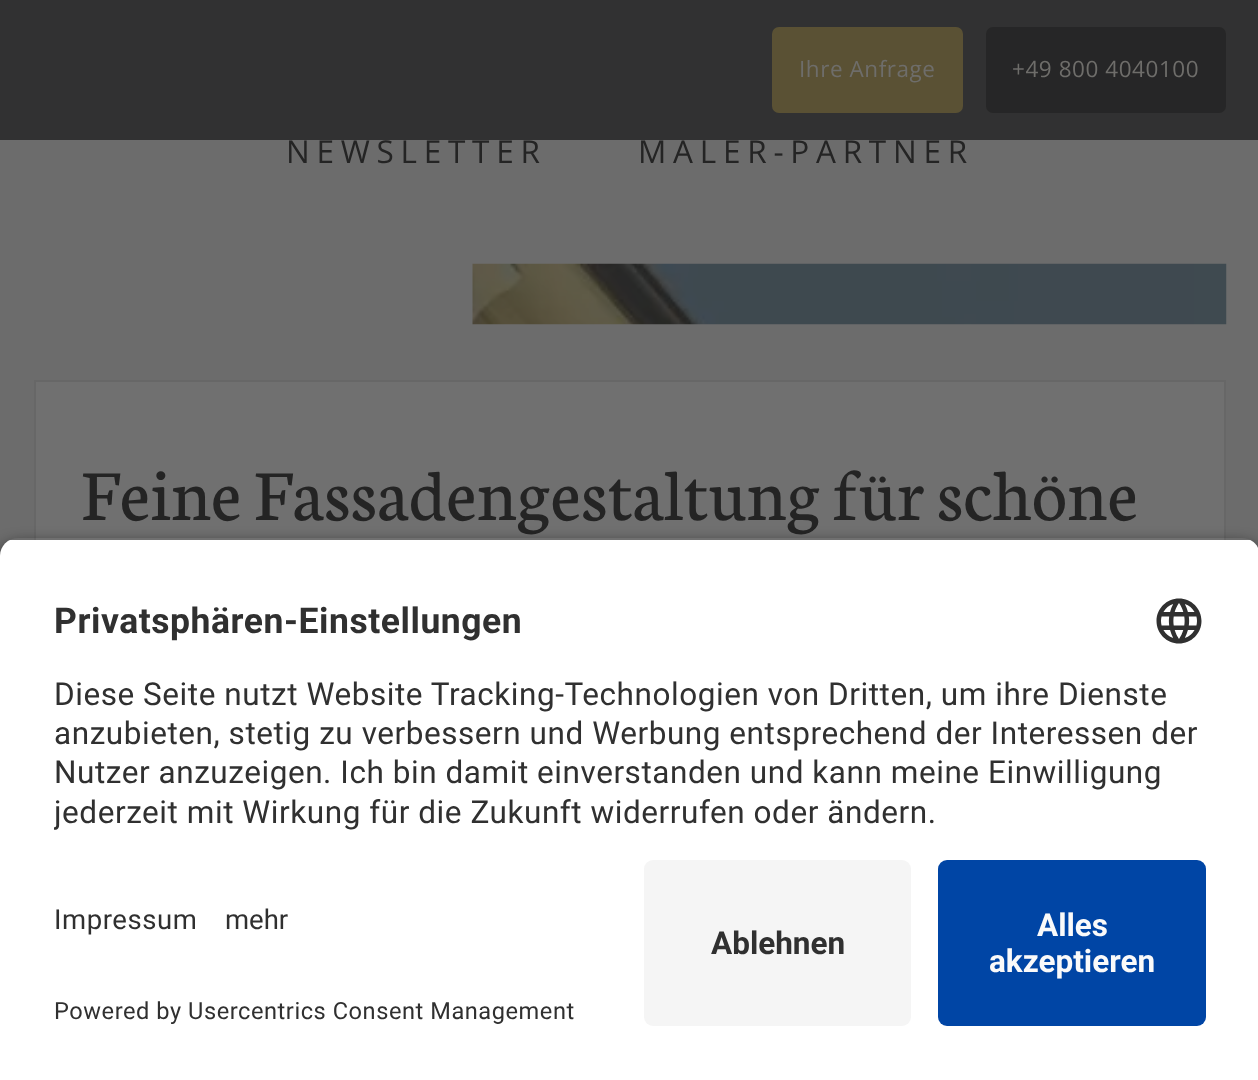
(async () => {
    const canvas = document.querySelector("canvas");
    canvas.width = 1258;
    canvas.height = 1080;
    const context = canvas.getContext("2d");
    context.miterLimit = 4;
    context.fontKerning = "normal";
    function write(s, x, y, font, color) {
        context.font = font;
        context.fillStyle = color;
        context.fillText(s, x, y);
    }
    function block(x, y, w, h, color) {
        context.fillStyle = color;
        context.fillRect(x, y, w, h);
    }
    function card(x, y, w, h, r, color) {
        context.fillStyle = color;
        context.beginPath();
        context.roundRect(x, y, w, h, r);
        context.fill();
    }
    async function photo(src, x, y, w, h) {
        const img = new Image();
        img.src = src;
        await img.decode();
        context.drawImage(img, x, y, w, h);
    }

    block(0, 0, 1258, 1080, "rgb(108, 108, 108)");
    block(0, 0, 1258, 140, "rgb(49, 49, 50)");
    card(772, 27, 191, 86, 7, "rgba(95, 85, 52, 0.9)");
    context.letterSpacing = "0.55px";
    write("Ihre Anfrage", 799, 77, "22.5px Open Sans", "rgb(110, 109, 106)");
    card(986, 27, 240, 86, 7, "rgba(38, 38, 38, 0.9)");
    write("+49 800 4040100", 1012, 77, "22.5px Open Sans", "rgb(110, 109, 106)");
    context.letterSpacing = "6.75px";
    write("NEWSLETTER", 286, 163, "31.5px Open Sans", "rgb(36, 36, 36)");
    write("MALER-PARTNER", 638, 163, "31.5px Open Sans", "rgb(36, 36, 36)");
    await photo("media/1.png", 472, 263, 755, 62);
    block(36, 382, 1188, 158, "rgb(112, 112, 112)");
    context.strokeStyle = "rgb(103, 103, 103)";
    context.lineWidth = 2;
    context.strokeRect(35, 381, 1190, 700);
    context.letterSpacing = "0.55px";
    write("Feine Fassadengestaltung für schöne", 81, 520, "76.5px Neuton", "rgb(36, 36, 36)");
    context.save();
    context.beginPath();
    context.moveTo(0, 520);
    context.lineTo(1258, 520);
    context.lineTo(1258, 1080);
    context.lineTo(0, 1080);
    context.closePath();
    context.moveTo(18, 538);
    context.lineTo(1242, 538);
    context.bezierCurveTo(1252, 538, 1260, 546, 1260, 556);
    context.lineTo(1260, 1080);
    context.lineTo(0, 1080);
    context.lineTo(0, 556);
    context.bezierCurveTo(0, 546, 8, 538, 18, 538);
    context.closePath();
    context.clip("evenodd");
    context.fillStyle = "rgba(0, 0, 0, 0.8)";
    context.filter = "blur(8px)";
    context.beginPath();
    context.roundRect(0, 545, 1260, 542, 18);
    context.fill();
    context.filter = "none";
    context.restore();
    context.save();
    context.beginPath();
    context.moveTo(18, 538);
    context.lineTo(1242, 538);
    context.bezierCurveTo(1252, 538, 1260, 546, 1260, 556);
    context.lineTo(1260, 842);
    context.lineTo(0, 842);
    context.lineTo(0, 556);
    context.bezierCurveTo(0, 546, 8, 538, 18, 538);
    context.closePath();
    context.clip();
    block(0, 540, 1258, 302, "rgb(255, 255, 255)");
    context.restore();
    write("Privatsphären-Einstellungen", 54, 633, "bold 35.5px Roboto", "rgb(48, 48, 48)");
    await photo("media/2.png", 1156, 598, 46, 46);
    write("Diese Seite nutzt Website Tracking-Technologien von Dritten, um ihre Dienste", 54, 705, "31.5px Roboto", "rgb(48, 48, 48)");
    write("anzubieten, stetig zu verbessern und Werbung entsprechend der Interessen der", 54, 744, "31.5px Roboto", "rgb(48, 48, 48)");
    write("Nutzer anzuzeigen. Ich bin damit einverstanden und kann meine Einwilligung", 54, 783, "31.5px Roboto", "rgb(48, 48, 48)");
    context.save();
    context.beginPath();
    context.rect(54, 666, 1152, 176);
    context.clip();
    write("jederzeit mit Wirkung für die Zukunft widerrufen oder ändern.", 54, 823, "31.5px Roboto", "rgb(48, 48, 48)");
    context.restore();
    block(0, 842, 1258, 238, "rgb(255, 255, 255)");
    write("Impressum", 54, 929, "27.5px Roboto", "rgb(48, 48, 48)");
    context.letterSpacing = "0px";
    write("mehr", 225, 929, "27.5px Roboto", "rgb(48, 48, 48)");
    context.letterSpacing = "0.55px";
    write("Powered by Usercentrics Consent Management", 54, 1019, "23.6px Roboto", "rgb(48, 48, 48)");
    card(644, 860, 267, 166, 9, "rgb(245, 245, 245)");
    context.letterSpacing = "0px";
    write("Ablehnen", 711, 954, "bold 31.5px Roboto", "rgb(48, 48, 48)");
    card(938, 860, 268, 166, 9, "rgb(0, 69, 165)");
    write("Alles", 1037, 936, "bold 31.5px Roboto", "rgb(250, 250, 250)");
    write("akzeptieren", 989, 972, "bold 31.5px Roboto", "rgb(250, 250, 250)");
})();
